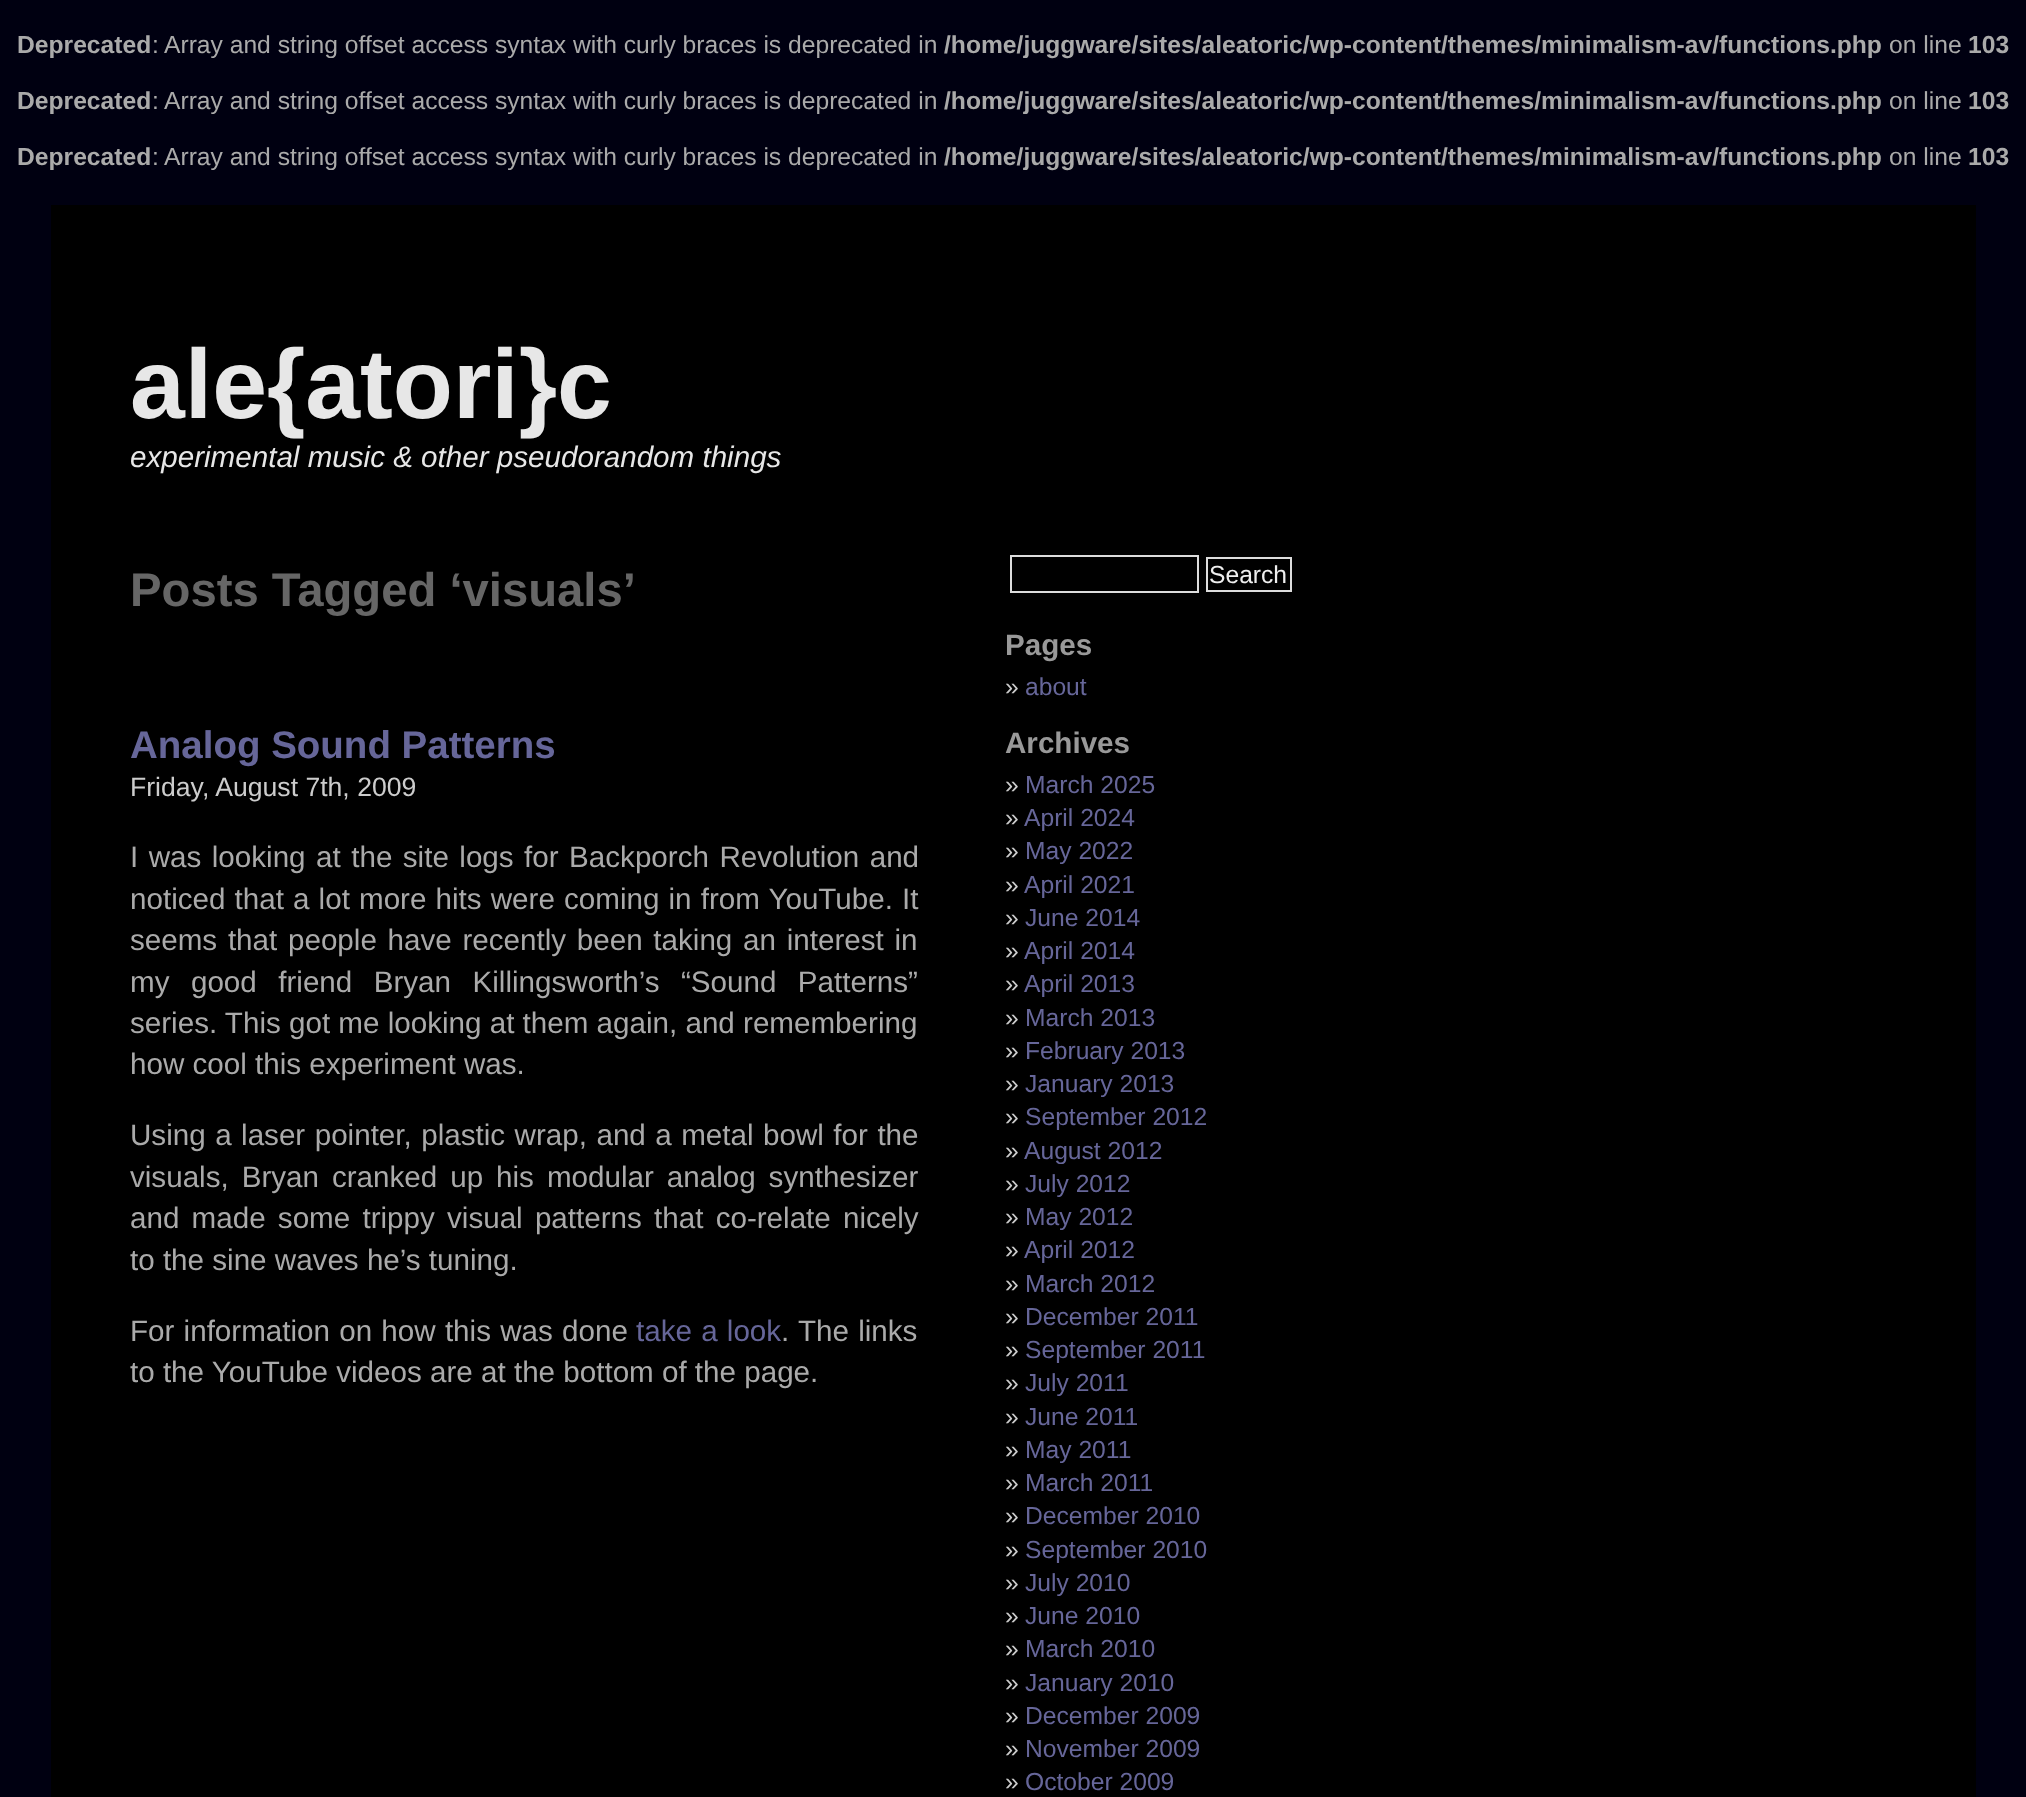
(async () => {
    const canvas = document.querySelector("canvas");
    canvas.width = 2026;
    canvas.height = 1797;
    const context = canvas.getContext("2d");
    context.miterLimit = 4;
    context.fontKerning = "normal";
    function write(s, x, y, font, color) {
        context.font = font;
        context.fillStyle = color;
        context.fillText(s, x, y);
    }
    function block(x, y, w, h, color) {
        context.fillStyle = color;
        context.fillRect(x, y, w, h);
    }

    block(0, 0, 2026, 1797, "rgb(0, 0, 17)");
    write("Deprecated", 17, 53, "bold 24.65px Liberation Sans", "rgb(170, 170, 170)");
    write(":", 152, 53, "24.65px Liberation Sans", "rgb(170, 170, 170)");
    write("Array and string offset access syntax with curly braces is deprecated in", 164, 53, "24.65px Liberation Sans", "rgb(170, 170, 170)");
    write("/home/juggware/sites/aleatoric/wp-content/themes/minimalism-av/functions.php", 944, 53, "bold 24.65px Liberation Sans", "rgb(170, 170, 170)");
    write("on line", 1889, 53, "24.65px Liberation Sans", "rgb(170, 170, 170)");
    write("103", 1968, 53, "bold 24.65px Liberation Sans", "rgb(170, 170, 170)");
    write("Deprecated", 17, 109, "bold 24.65px Liberation Sans", "rgb(170, 170, 170)");
    write(":", 152, 109, "24.65px Liberation Sans", "rgb(170, 170, 170)");
    write("Array and string offset access syntax with curly braces is deprecated in", 164, 109, "24.65px Liberation Sans", "rgb(170, 170, 170)");
    write("/home/juggware/sites/aleatoric/wp-content/themes/minimalism-av/functions.php", 944, 109, "bold 24.65px Liberation Sans", "rgb(170, 170, 170)");
    write("on line", 1889, 109, "24.65px Liberation Sans", "rgb(170, 170, 170)");
    write("103", 1968, 109, "bold 24.65px Liberation Sans", "rgb(170, 170, 170)");
    write("Deprecated", 17, 165, "bold 24.65px Liberation Sans", "rgb(170, 170, 170)");
    write(":", 152, 165, "24.65px Liberation Sans", "rgb(170, 170, 170)");
    write("Array and string offset access syntax with curly braces is deprecated in", 164, 165, "24.65px Liberation Sans", "rgb(170, 170, 170)");
    write("/home/juggware/sites/aleatoric/wp-content/themes/minimalism-av/functions.php", 944, 165, "bold 24.65px Liberation Sans", "rgb(170, 170, 170)");
    write("on line", 1889, 165, "24.65px Liberation Sans", "rgb(170, 170, 170)");
    write("103", 1968, 165, "bold 24.65px Liberation Sans", "rgb(170, 170, 170)");
    block(51, 205, 1925, 1592, "rgb(0, 0, 0)");
    write("ale{atori}c", 130, 418, "bold 98.5px Liberation Sans", "rgb(231, 231, 231)");
    write("experimental music & other pseudorandom things", 130, 467, "italic 29.6px Liberation Sans", "rgb(231, 231, 231)");
    write("Posts Tagged ‘visuals’", 130, 606, "bold 47.25px Liberation Sans", "rgb(102, 102, 102)");
    write("Analog Sound Patterns", 130, 758, "bold 38.5px Liberation Sans", "rgb(102, 102, 153)");
    write("Friday, August 7th, 2009", 130, 796, "26.6px Liberation Sans", "rgb(204, 204, 204)");
    context.wordSpacing = "2.25px";
    write("I was looking at the site logs for Backporch Revolution and", 130, 867, "29.6px Liberation Sans", "rgb(170, 170, 170)");
    context.wordSpacing = "0.9px";
    write("noticed that a lot more hits were coming in from YouTube. It", 130, 909, "29.6px Liberation Sans", "rgb(170, 170, 170)");
    context.wordSpacing = "2.5px";
    write("seems that people have recently been taking an interest in", 130, 950, "29.6px Liberation Sans", "rgb(170, 170, 170)");
    context.wordSpacing = "13.25px";
    write("my good friend Bryan Killingsworth’s “Sound Patterns”", 130, 992, "29.6px Liberation Sans", "rgb(170, 170, 170)");
    context.wordSpacing = "0px";
    write("series. This got me looking at them again, and remembering", 130, 1033, "29.6px Liberation Sans", "rgb(170, 170, 170)");
    write("how cool this experiment was.", 130, 1074, "29.6px Liberation Sans", "rgb(170, 170, 170)");
    context.wordSpacing = "1.25px";
    write("Using a laser pointer, plastic wrap, and a metal bowl for the", 130, 1145, "29.6px Liberation Sans", "rgb(170, 170, 170)");
    context.wordSpacing = "4.75px";
    write("visuals, Bryan cranked up his modular analog synthesizer", 130, 1187, "29.6px Liberation Sans", "rgb(170, 170, 170)");
    context.wordSpacing = "4px";
    write("and made some trippy visual patterns that co-relate nicely", 130, 1228, "29.6px Liberation Sans", "rgb(170, 170, 170)");
    context.wordSpacing = "0px";
    write("to the sine waves he’s tuning.", 130, 1270, "29.6px Liberation Sans", "rgb(170, 170, 170)");
    context.wordSpacing = "1px";
    write("For information on how this was done", 130, 1341, "29.6px Liberation Sans", "rgb(170, 170, 170)");
    write("take a look", 636, 1341, "29.6px Liberation Sans", "rgb(102, 102, 153)");
    write(". The links", 781, 1341, "29.6px Liberation Sans", "rgb(170, 170, 170)");
    context.wordSpacing = "0px";
    write("to the YouTube videos are at the bottom of the page.", 130, 1382, "29.6px Liberation Sans", "rgb(170, 170, 170)");
    context.strokeStyle = "rgb(221, 221, 221)";
    context.lineWidth = 2;
    context.strokeRect(1011, 556, 187, 36);
    context.strokeRect(1207, 558, 84, 33);
    write("Search", 1209, 583, "24.65px Liberation Sans", "rgb(238, 238, 238)");
    write("Pages", 1005, 655, "bold 29.6px Liberation Sans", "rgb(153, 153, 153)");
    write("»", 1005, 695, "24.65px Liberation Sans", "rgb(204, 204, 204)");
    write("about", 1025, 695, "24.65px Liberation Sans", "rgb(102, 102, 153)");
    write("Archives", 1005, 753, "bold 29.6px Liberation Sans", "rgb(153, 153, 153)");
    write("»", 1005, 793, "24.65px Liberation Sans", "rgb(204, 204, 204)");
    write("March 2025", 1025, 793, "24.65px Liberation Sans", "rgb(102, 102, 153)");
    write("»", 1005, 826, "24.65px Liberation Sans", "rgb(204, 204, 204)");
    write("April 2024", 1024, 826, "24.65px Liberation Sans", "rgb(102, 102, 153)");
    write("»", 1005, 859, "24.65px Liberation Sans", "rgb(204, 204, 204)");
    write("May 2022", 1025, 859, "24.65px Liberation Sans", "rgb(102, 102, 153)");
    write("»", 1005, 893, "24.65px Liberation Sans", "rgb(204, 204, 204)");
    write("April 2021", 1024, 893, "24.65px Liberation Sans", "rgb(102, 102, 153)");
    write("»", 1005, 926, "24.65px Liberation Sans", "rgb(204, 204, 204)");
    write("June 2014", 1025, 926, "24.65px Liberation Sans", "rgb(102, 102, 153)");
    write("»", 1005, 959, "24.65px Liberation Sans", "rgb(204, 204, 204)");
    write("April 2014", 1024, 959, "24.65px Liberation Sans", "rgb(102, 102, 153)");
    write("»", 1005, 992, "24.65px Liberation Sans", "rgb(204, 204, 204)");
    write("April 2013", 1024, 992, "24.65px Liberation Sans", "rgb(102, 102, 153)");
    write("»", 1005, 1026, "24.65px Liberation Sans", "rgb(204, 204, 204)");
    write("March 2013", 1025, 1026, "24.65px Liberation Sans", "rgb(102, 102, 153)");
    write("»", 1005, 1059, "24.65px Liberation Sans", "rgb(204, 204, 204)");
    write("February 2013", 1025, 1059, "24.65px Liberation Sans", "rgb(102, 102, 153)");
    write("»", 1005, 1092, "24.65px Liberation Sans", "rgb(204, 204, 204)");
    write("January 2013", 1025, 1092, "24.65px Liberation Sans", "rgb(102, 102, 153)");
    write("»", 1005, 1125, "24.65px Liberation Sans", "rgb(204, 204, 204)");
    write("September 2012", 1025, 1125, "24.65px Liberation Sans", "rgb(102, 102, 153)");
    write("»", 1005, 1159, "24.65px Liberation Sans", "rgb(204, 204, 204)");
    write("August 2012", 1024, 1159, "24.65px Liberation Sans", "rgb(102, 102, 153)");
    write("»", 1005, 1192, "24.65px Liberation Sans", "rgb(204, 204, 204)");
    write("July 2012", 1025, 1192, "24.65px Liberation Sans", "rgb(102, 102, 153)");
    write("»", 1005, 1225, "24.65px Liberation Sans", "rgb(204, 204, 204)");
    write("May 2012", 1025, 1225, "24.65px Liberation Sans", "rgb(102, 102, 153)");
    write("»", 1005, 1258, "24.65px Liberation Sans", "rgb(204, 204, 204)");
    write("April 2012", 1024, 1258, "24.65px Liberation Sans", "rgb(102, 102, 153)");
    write("»", 1005, 1292, "24.65px Liberation Sans", "rgb(204, 204, 204)");
    write("March 2012", 1025, 1292, "24.65px Liberation Sans", "rgb(102, 102, 153)");
    write("»", 1005, 1325, "24.65px Liberation Sans", "rgb(204, 204, 204)");
    write("December 2011", 1025, 1325, "24.65px Liberation Sans", "rgb(102, 102, 153)");
    write("»", 1005, 1358, "24.65px Liberation Sans", "rgb(204, 204, 204)");
    write("September 2011", 1025, 1358, "24.65px Liberation Sans", "rgb(102, 102, 153)");
    write("»", 1005, 1391, "24.65px Liberation Sans", "rgb(204, 204, 204)");
    write("July 2011", 1025, 1391, "24.65px Liberation Sans", "rgb(102, 102, 153)");
    write("»", 1005, 1425, "24.65px Liberation Sans", "rgb(204, 204, 204)");
    write("June 2011", 1025, 1425, "24.65px Liberation Sans", "rgb(102, 102, 153)");
    write("»", 1005, 1458, "24.65px Liberation Sans", "rgb(204, 204, 204)");
    write("May 2011", 1025, 1458, "24.65px Liberation Sans", "rgb(102, 102, 153)");
    write("»", 1005, 1491, "24.65px Liberation Sans", "rgb(204, 204, 204)");
    write("March 2011", 1025, 1491, "24.65px Liberation Sans", "rgb(102, 102, 153)");
    write("»", 1005, 1524, "24.65px Liberation Sans", "rgb(204, 204, 204)");
    write("December 2010", 1025, 1524, "24.65px Liberation Sans", "rgb(102, 102, 153)");
    write("»", 1005, 1558, "24.65px Liberation Sans", "rgb(204, 204, 204)");
    write("September 2010", 1025, 1558, "24.65px Liberation Sans", "rgb(102, 102, 153)");
    write("»", 1005, 1591, "24.65px Liberation Sans", "rgb(204, 204, 204)");
    write("July 2010", 1025, 1591, "24.65px Liberation Sans", "rgb(102, 102, 153)");
    write("»", 1005, 1624, "24.65px Liberation Sans", "rgb(204, 204, 204)");
    write("June 2010", 1025, 1624, "24.65px Liberation Sans", "rgb(102, 102, 153)");
    write("»", 1005, 1657, "24.65px Liberation Sans", "rgb(204, 204, 204)");
    write("March 2010", 1025, 1657, "24.65px Liberation Sans", "rgb(102, 102, 153)");
    write("»", 1005, 1691, "24.65px Liberation Sans", "rgb(204, 204, 204)");
    write("January 2010", 1025, 1691, "24.65px Liberation Sans", "rgb(102, 102, 153)");
    write("»", 1005, 1724, "24.65px Liberation Sans", "rgb(204, 204, 204)");
    write("December 2009", 1025, 1724, "24.65px Liberation Sans", "rgb(102, 102, 153)");
    write("»", 1005, 1757, "24.65px Liberation Sans", "rgb(204, 204, 204)");
    write("November 2009", 1025, 1757, "24.65px Liberation Sans", "rgb(102, 102, 153)");
    write("»", 1005, 1790, "24.65px Liberation Sans", "rgb(204, 204, 204)");
    write("October 2009", 1025, 1790, "24.65px Liberation Sans", "rgb(102, 102, 153)");
})();
